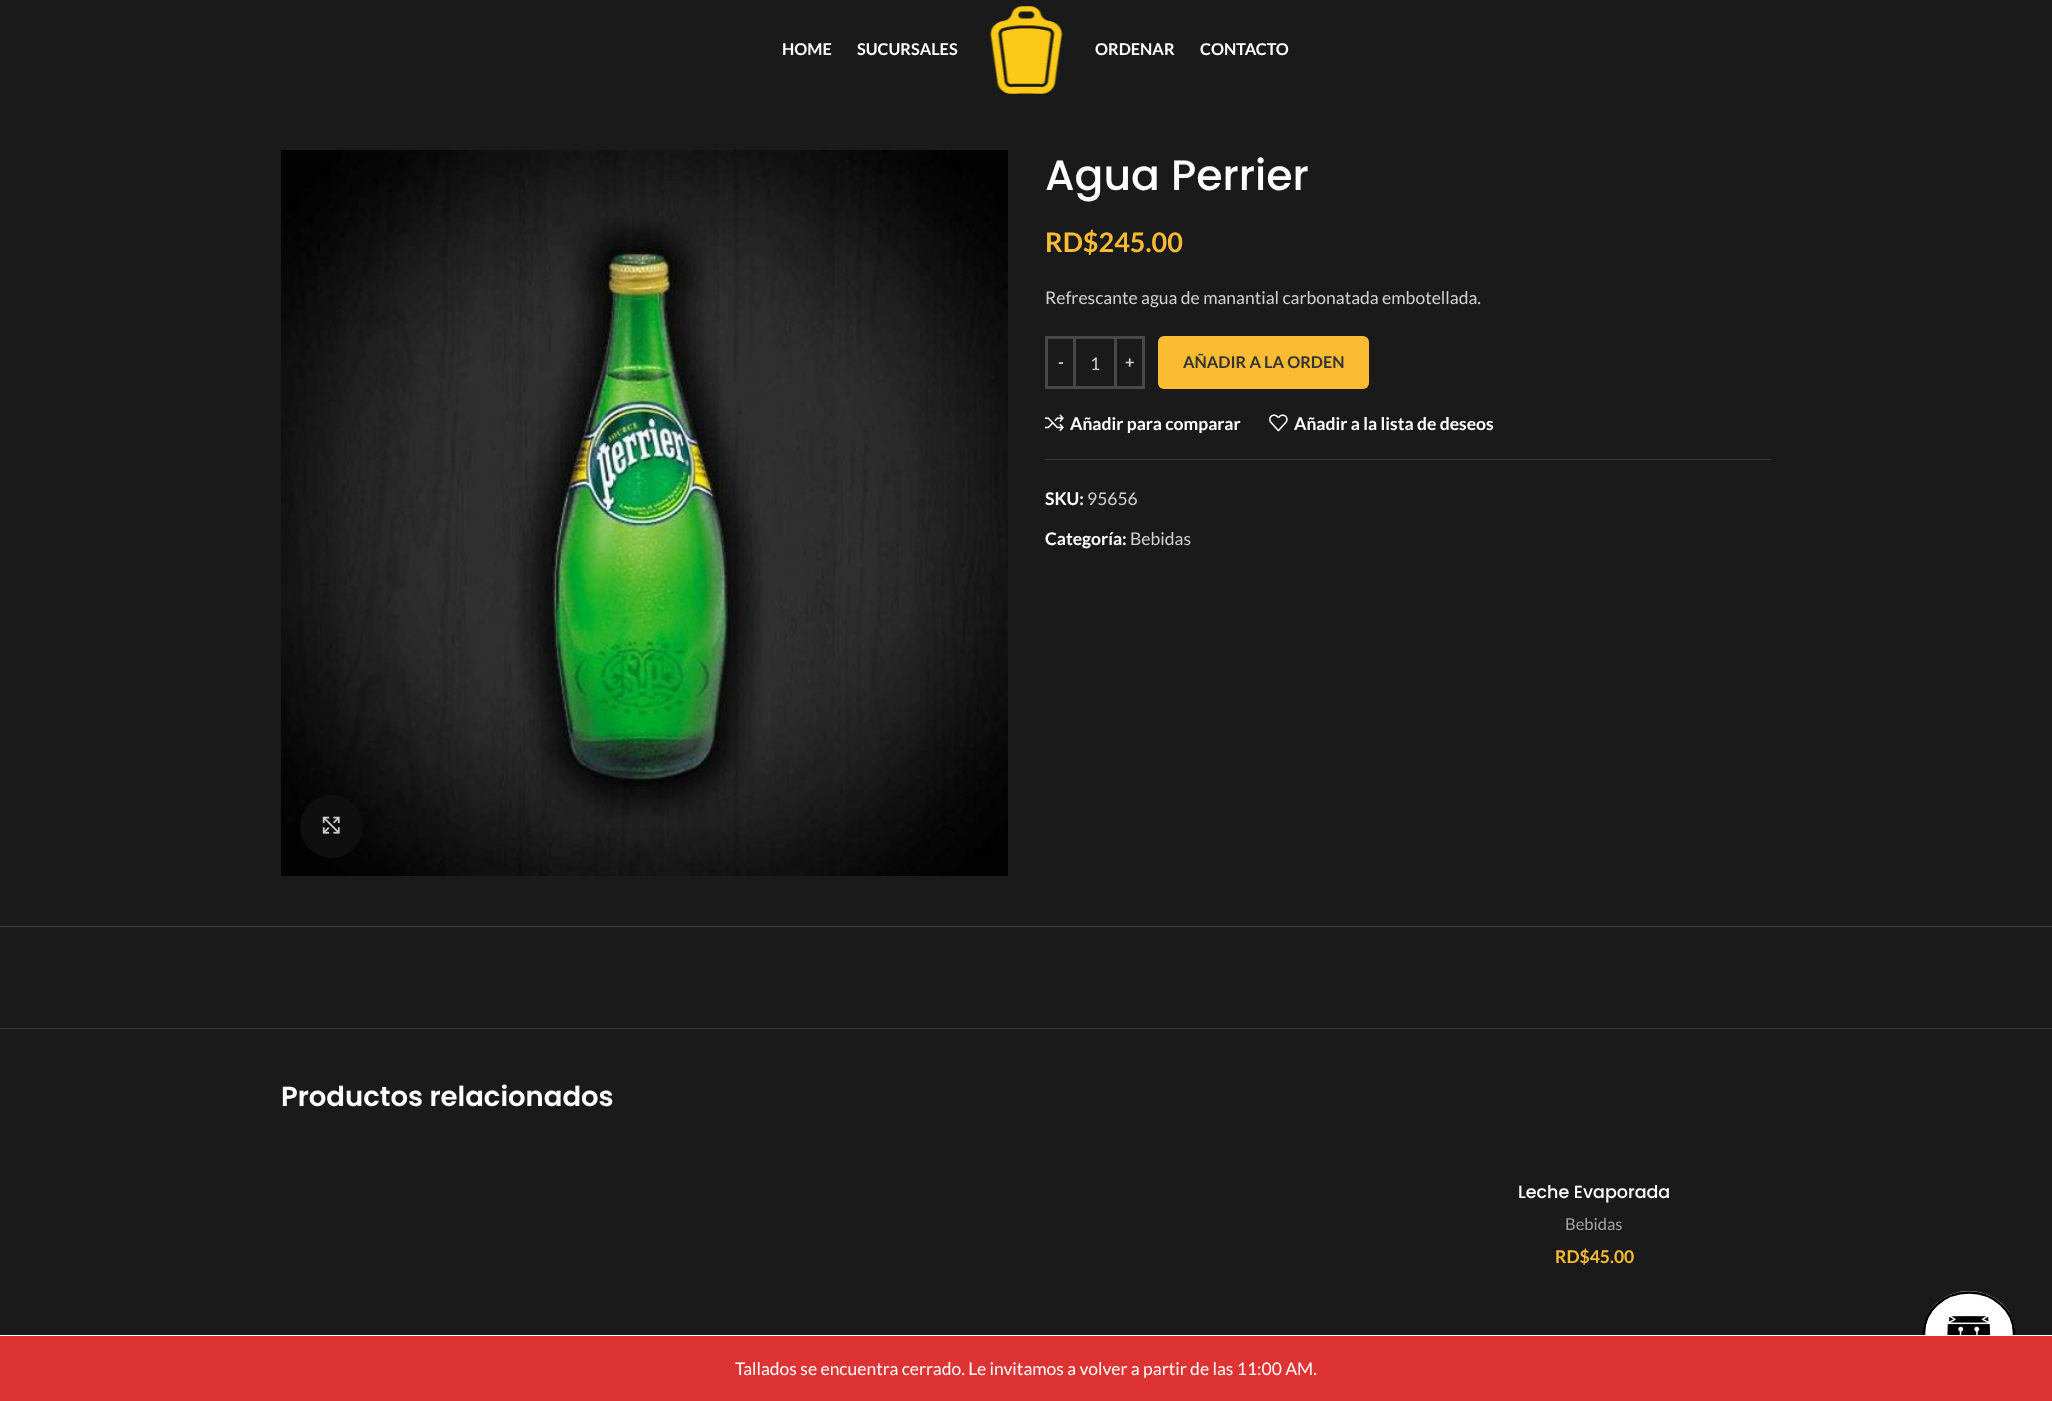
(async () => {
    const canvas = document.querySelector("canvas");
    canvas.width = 2052;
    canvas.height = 1401;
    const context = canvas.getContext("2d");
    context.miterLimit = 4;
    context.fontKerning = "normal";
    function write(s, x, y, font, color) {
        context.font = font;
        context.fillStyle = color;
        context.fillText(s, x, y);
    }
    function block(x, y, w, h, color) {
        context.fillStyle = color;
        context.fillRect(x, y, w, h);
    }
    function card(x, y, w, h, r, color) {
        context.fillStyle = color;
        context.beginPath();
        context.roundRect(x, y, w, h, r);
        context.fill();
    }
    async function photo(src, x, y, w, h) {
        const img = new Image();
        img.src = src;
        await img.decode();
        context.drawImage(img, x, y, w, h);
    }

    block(0, 0, 2052, 1401, "rgb(26, 26, 26)");
    write("HOME", 782, 55, "bold 16.25px Lato", "rgb(255, 255, 255)");
    write("SUCURSALES", 857, 55, "bold 16.25px Lato", "rgb(255, 255, 255)");
    await photo("media/1.png", 990, 6, 73, 88);
    write("ORDENAR", 1095, 55, "bold 16.25px Lato", "rgb(255, 255, 255)");
    write("CONTACTO", 1200, 55, "bold 16.25px Lato", "rgb(255, 255, 255)");
    await photo("media/2.png", 281, 150, 727, 726);
    context.fillStyle = "rgb(15, 15, 15)";
    context.beginPath();
    context.arc(331.5, 826.5, 31.5, 0, Math.PI * 2);
    context.fill();
    await photo("media/3.png", 322, 816, 18, 18);
    write("Agua Perrier", 1045, 190, "500 42.5px Poppins", "rgb(255, 255, 255)");
    write("RD$245.00", 1045, 252, "bold 27px Lato", "rgb(251, 188, 52)");
    write("Refrescante agua de manantial carbonatada embotellada.", 1045, 304, "17.5px Lato", "rgb(209, 209, 209)");
    context.strokeStyle = "rgb(72, 72, 72)";
    context.lineWidth = 3;
    context.strokeRect(1046.5, 337.5, 28, 50);
    write("-", 1058, 368, "bold 16.25px Lato", "rgb(209, 209, 209)");
    block(1076, 336, 38, 3, "rgb(72, 72, 72)");
    block(1076, 386, 38, 3, "rgb(72, 72, 72)");
    write("1", 1090, 370, "17.5px Lato", "rgb(209, 209, 209)");
    context.strokeRect(1115.5, 337.5, 28, 50);
    write("+", 1125, 368, "bold 16.25px Lato", "rgb(209, 209, 209)");
    card(1158, 336, 211, 53, 6, "rgb(251, 188, 52)");
    write("AÑADIR A LA ORDEN", 1183, 368, "bold 16.25px Lato", "rgb(51, 51, 51)");
    await photo("media/4.png", 1045, 414, 19, 18);
    write("Añadir para comparar", 1070, 430, "bold 17.5px Lato", "rgb(255, 255, 255)");
    await photo("media/5.png", 1269, 414, 19, 18);
    write("Añadir a la lista de deseos", 1294, 430, "bold 17.5px Lato", "rgb(255, 255, 255)");
    block(1045, 459, 726, 1, "rgb(60, 60, 60)");
    write("SKU:", 1045, 505, "bold 17.5px Lato", "rgb(255, 255, 255)");
    write("95656", 1087, 505, "17.5px Lato", "rgb(209, 209, 209)");
    write("Categoría:", 1045, 545, "bold 17.5px Lato", "rgb(255, 255, 255)");
    write("Bebidas", 1130, 545, "17.5px Lato", "rgb(209, 209, 209)");
    block(0, 926, 2052, 1, "rgb(60, 60, 60)");
    block(0, 1028, 2052, 1, "rgb(60, 60, 60)");
    write("Productos relacionados", 281, 1106, "600 27.5px Poppins", "rgb(255, 255, 255)");
    write("Leche Evaporada", 1518, 1198, "500 17.5px Poppins", "rgb(255, 255, 255)");
    write("Bebidas", 1565, 1230, "16.5px Lato", "rgb(163, 163, 163)");
    write("RD$45.00", 1555, 1263, "bold 17.5px Lato", "rgb(251, 188, 52)");
    context.fillStyle = "rgb(255, 255, 255)";
    context.beginPath();
    context.ellipse(1969, 1333, 46, 42, 0, 0, Math.PI * 2);
    context.fill();
    context.beginPath();
    context.moveTo(1969, 1292.5);
    context.bezierCurveTo(1993.5, 1292.5, 2014, 1310.5, 2014, 1333);
    context.bezierCurveTo(2014, 1355.5, 1993.5, 1374, 1969, 1374);
    context.bezierCurveTo(1944, 1374, 1924, 1355.5, 1924, 1333);
    context.bezierCurveTo(1924, 1310.5, 1944, 1292.5, 1969, 1292.5);
    context.closePath();
    context.strokeStyle = "rgb(0, 0, 0)";
    context.lineWidth = 2.5;
    context.stroke();
    await photo("media/6.png", 1947, 1316, 44, 19);
    block(0, 1336, 2052, 65, "rgb(221, 51, 51)");
    block(0, 1335, 2052, 1, "rgb(255, 255, 255)");
    write("Tallados se encuentra cerrado. Le invitamos a volver a partir de las 11:00 AM.", 735, 1375, "17.5px Lato", "rgb(255, 255, 255)");
})();
